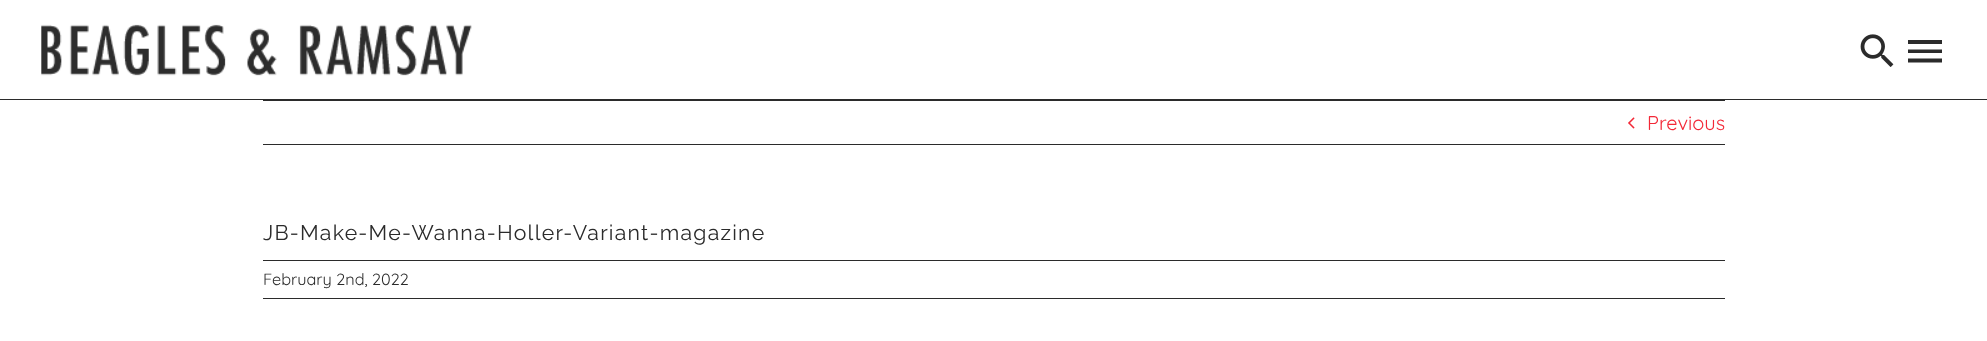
(async () => {
    const canvas = document.querySelector("canvas");
    canvas.width = 1987;
    canvas.height = 341;
    const context = canvas.getContext("2d");
    context.miterLimit = 4;
    context.fontKerning = "normal";
    function write(s, x, y, font, color) {
        context.font = font;
        context.fillStyle = color;
        context.fillText(s, x, y);
    }
    function block(x, y, w, h, color) {
        context.fillStyle = color;
        context.fillRect(x, y, w, h);
    }
    async function photo(src, x, y, w, h) {
        const img = new Image();
        img.src = src;
        await img.decode();
        context.drawImage(img, x, y, w, h);
    }

    block(0, 0, 1987, 341, "rgb(255, 255, 255)");
    block(0, 99, 1987, 1, "rgb(43, 43, 43)");
    await photo("media/1.png", 41, 24, 431, 52);
    await photo("media/2.png", 1860, 34, 34, 33);
    context.beginPath();
    context.moveTo(1908, 40);
    context.lineTo(1942, 40);
    context.lineTo(1942, 44);
    context.lineTo(1908, 44);
    context.closePath();
    context.moveTo(1908, 53);
    context.lineTo(1908, 49.5);
    context.lineTo(1942, 49.5);
    context.lineTo(1942, 53);
    context.closePath();
    context.moveTo(1908, 62.5);
    context.lineTo(1908, 58.5);
    context.lineTo(1942, 58.5);
    context.lineTo(1942, 62.5);
    context.closePath();
    context.fill();
    block(263, 100, 1462, 1, "rgb(43, 43, 43)");
    block(263, 144, 1462, 1, "rgb(43, 43, 43)");
    await photo("media/3.png", 1628, 117, 7, 12);
    write("Previous", 1647, 130, "20px Quicksand", "rgb(243, 40, 55)");
    context.letterSpacing = "1.25px";
    write("JB-Make-Me-Wanna-Holler-Variant-magazine", 263, 240, "21.25px Raleway", "rgb(43, 43, 43)");
    block(263, 260, 1462, 1, "rgb(43, 43, 43)");
    block(263, 298, 1462, 1, "rgb(43, 43, 43)");
    context.letterSpacing = "0px";
    write("February 2nd, 2022", 263, 285, "16.25px Quicksand", "rgb(43, 43, 43)");
})();
